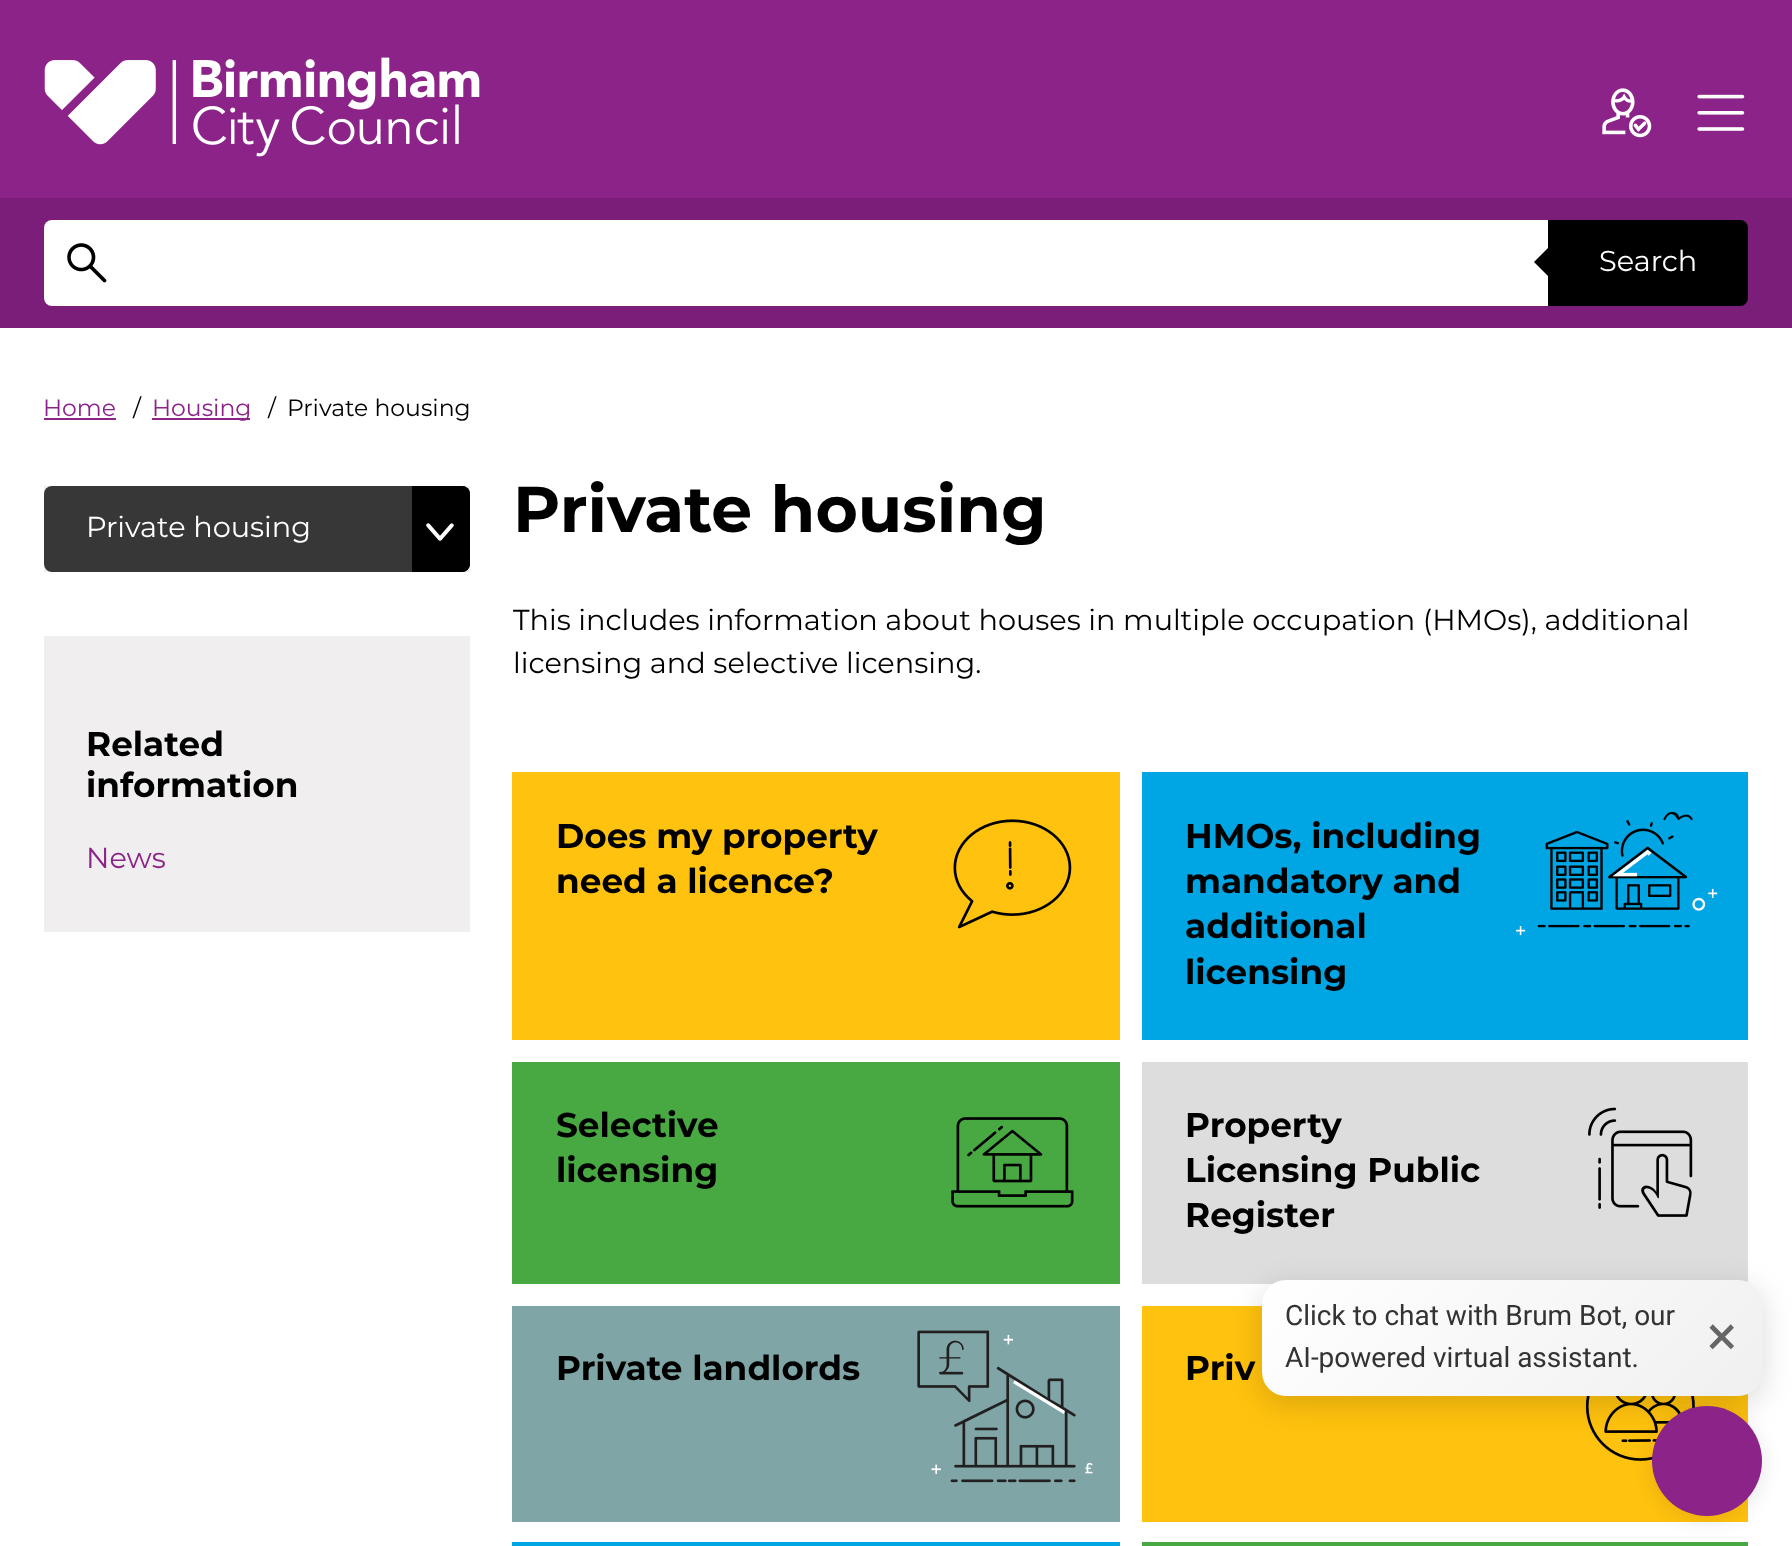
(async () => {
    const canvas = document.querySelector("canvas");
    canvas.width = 1792;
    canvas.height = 1546;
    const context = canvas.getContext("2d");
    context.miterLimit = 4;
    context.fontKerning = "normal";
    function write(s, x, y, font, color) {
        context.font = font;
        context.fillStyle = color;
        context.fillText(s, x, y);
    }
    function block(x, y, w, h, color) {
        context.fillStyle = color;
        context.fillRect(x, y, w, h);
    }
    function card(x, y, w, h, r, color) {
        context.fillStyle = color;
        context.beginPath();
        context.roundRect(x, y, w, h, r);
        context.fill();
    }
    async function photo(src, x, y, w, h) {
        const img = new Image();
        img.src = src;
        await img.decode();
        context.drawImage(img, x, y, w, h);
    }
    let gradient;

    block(0, 0, 1792, 1546, "rgb(255, 255, 255)");
    block(0, 0, 1792, 198, "rgb(139, 35, 136)");
    await photo("media/1.png", 44, 57, 436, 100);
    await photo("media/2.png", 1602, 88, 50, 50);
    await photo("media/3.png", 1697, 94, 48, 37);
    block(0, 198, 1792, 130, "rgb(123, 30, 121)");
    context.fillStyle = "rgb(255, 255, 255)";
    context.beginPath();
    context.roundRect(44, 220, 1504, 86, [8, 0, 0, 8]);
    context.fill();
    await photo("media/4.png", 67, 243, 40, 40);
    context.fillStyle = "rgb(0, 0, 0)";
    context.beginPath();
    context.roundRect(1548, 220, 200, 86, [0, 8, 8, 0]);
    context.fill();
    context.beginPath();
    context.moveTo(1548, 248);
    context.lineTo(1548, 276);
    context.lineTo(1534, 262);
    context.closePath();
    context.fill();
    write("Search", 1599, 271, "28.8px Montserrat", "rgb(255, 255, 255)");
    write("Home", 43, 416, "23.5px Montserrat", "rgb(139, 35, 136)");
    block(44, 418, 72, 2, "rgb(139, 35, 136)");
    write("/", 133, 416, "23.5px Montserrat", "rgb(0, 0, 0)");
    block(152, 418, 98, 2, "rgb(139, 35, 136)");
    write("Housing", 152, 416, "23.5px Montserrat", "rgb(139, 35, 136)");
    write("/", 268, 416, "23.5px Montserrat", "rgb(0, 0, 0)");
    write("Private housing", 287, 416, "23.5px Montserrat", "rgb(0, 0, 0)");
    write("Private housing", 513, 532, "bold 64.75px Montserrat", "rgb(0, 0, 0)");
    write("This includes information about houses in multiple occupation (HMOs), additional", 513, 630, "28.8px Montserrat", "rgb(0, 0, 0)");
    write("licensing and selective licensing.", 513, 673, "28.8px Montserrat", "rgb(0, 0, 0)");
    block(512, 772, 608, 268, "rgb(255, 194, 14)");
    write("Does my property", 556, 848, "bold 34.25px Montserrat", "rgb(0, 0, 0)");
    write("need a licence?", 556, 893, "bold 34.25px Montserrat", "rgb(0, 0, 0)");
    await photo("media/5.png", 953, 819, 119, 110);
    block(1142, 772, 606, 268, "rgb(0, 165, 227)");
    write("HMOs, including", 1185, 848, "bold 34.25px Montserrat", "rgb(0, 0, 0)");
    write("mandatory and", 1185, 893, "bold 34.25px Montserrat", "rgb(0, 0, 0)");
    write("additional", 1185, 938, "bold 34.25px Montserrat", "rgb(0, 0, 0)");
    write("licensing", 1185, 984, "bold 34.25px Montserrat", "rgb(0, 0, 0)");
    await photo("media/6.png", 1516, 811, 202, 125);
    block(512, 1062, 608, 222, "rgb(72, 168, 66)");
    write("Selective", 556, 1137, "bold 34.25px Montserrat", "rgb(0, 0, 0)");
    write("licensing", 556, 1182, "bold 34.25px Montserrat", "rgb(0, 0, 0)");
    await photo("media/7.png", 951, 1117, 123, 91);
    block(1142, 1062, 606, 222, "rgb(221, 221, 221)");
    write("Property", 1185, 1137, "bold 34.25px Montserrat", "rgb(0, 0, 0)");
    write("Licensing Public", 1185, 1182, "bold 34.25px Montserrat", "rgb(0, 0, 0)");
    write("Register", 1185, 1227, "bold 34.25px Montserrat", "rgb(0, 0, 0)");
    await photo("media/8.png", 1588, 1107, 105, 110);
    block(512, 1306, 608, 216, "rgb(127, 165, 166)");
    write("Private landlords", 556, 1380, "bold 34.25px Montserrat", "rgb(0, 0, 0)");
    await photo("media/9.png", 917, 1330, 176, 153);
    block(1142, 1306, 606, 216, "rgb(255, 194, 14)");
    write("Priv", 1185, 1380, "bold 34.25px Montserrat", "rgb(0, 0, 0)");
    await photo("media/10.png", 1585, 1396, 110, 65);
    block(512, 1542, 608, 4, "rgb(0, 165, 227)");
    block(1142, 1542, 606, 4, "rgb(72, 168, 66)");
    block(44, 486, 426, 86, "rgb(240, 238, 238)");
    card(44, 486, 426, 86, 8, "rgb(55, 55, 55)");
    write("Private housing", 86, 537, "28.8px Montserrat", "rgb(255, 255, 255)");
    context.fillStyle = "rgb(0, 0, 0)";
    context.beginPath();
    context.roundRect(412, 486, 58, 86, [0, 8, 8, 0]);
    context.fill();
    await photo("media/11.png", 426, 523, 28, 18);
    block(44, 636, 426, 296, "rgb(240, 238, 238)");
    write("Related", 86, 756, "bold 34.25px Montserrat", "rgb(0, 0, 0)");
    write("information", 86, 797, "bold 34.25px Montserrat", "rgb(0, 0, 0)");
    write("News", 86, 868, "28.8px Montserrat", "rgb(139, 35, 136)");
    context.fillStyle = "rgba(0, 0, 0, 0.15)";
    context.filter = "blur(15px)";
    context.beginPath();
    context.roundRect(1262, 1288, 500, 116, 24);
    context.fill();
    context.filter = "none";
    gradient = context.createLinearGradient(1358, 1184, 1666, 1492);
    gradient.addColorStop(0, "rgb(255, 255, 255)");
    gradient.addColorStop(1, "rgb(240, 240, 240)");
    context.fillStyle = gradient;
    context.beginPath();
    context.roundRect(1262, 1280, 500, 116, 24);
    context.fill();
    write("Click to chat with Brum Bot, our", 1285, 1325, "28px Roboto", "rgb(51, 51, 51)");
    write("AI-powered virtual assistant.", 1285, 1367, "28px Roboto", "rgb(51, 51, 51)");
    write("×", 1707, 1355, "56px Roboto", "rgb(102, 102, 102)");
    context.fillStyle = "rgba(0, 0, 0, 0.1)";
    context.filter = "blur(10px)";
    context.beginPath();
    context.roundRect(1652, 1410, 110, 110, 55);
    context.fill();
    context.filter = "none";
    context.fillStyle = "rgb(139, 35, 136)";
    context.beginPath();
    context.arc(1707, 1461, 55, 0, Math.PI * 2);
    context.fill();
})();
